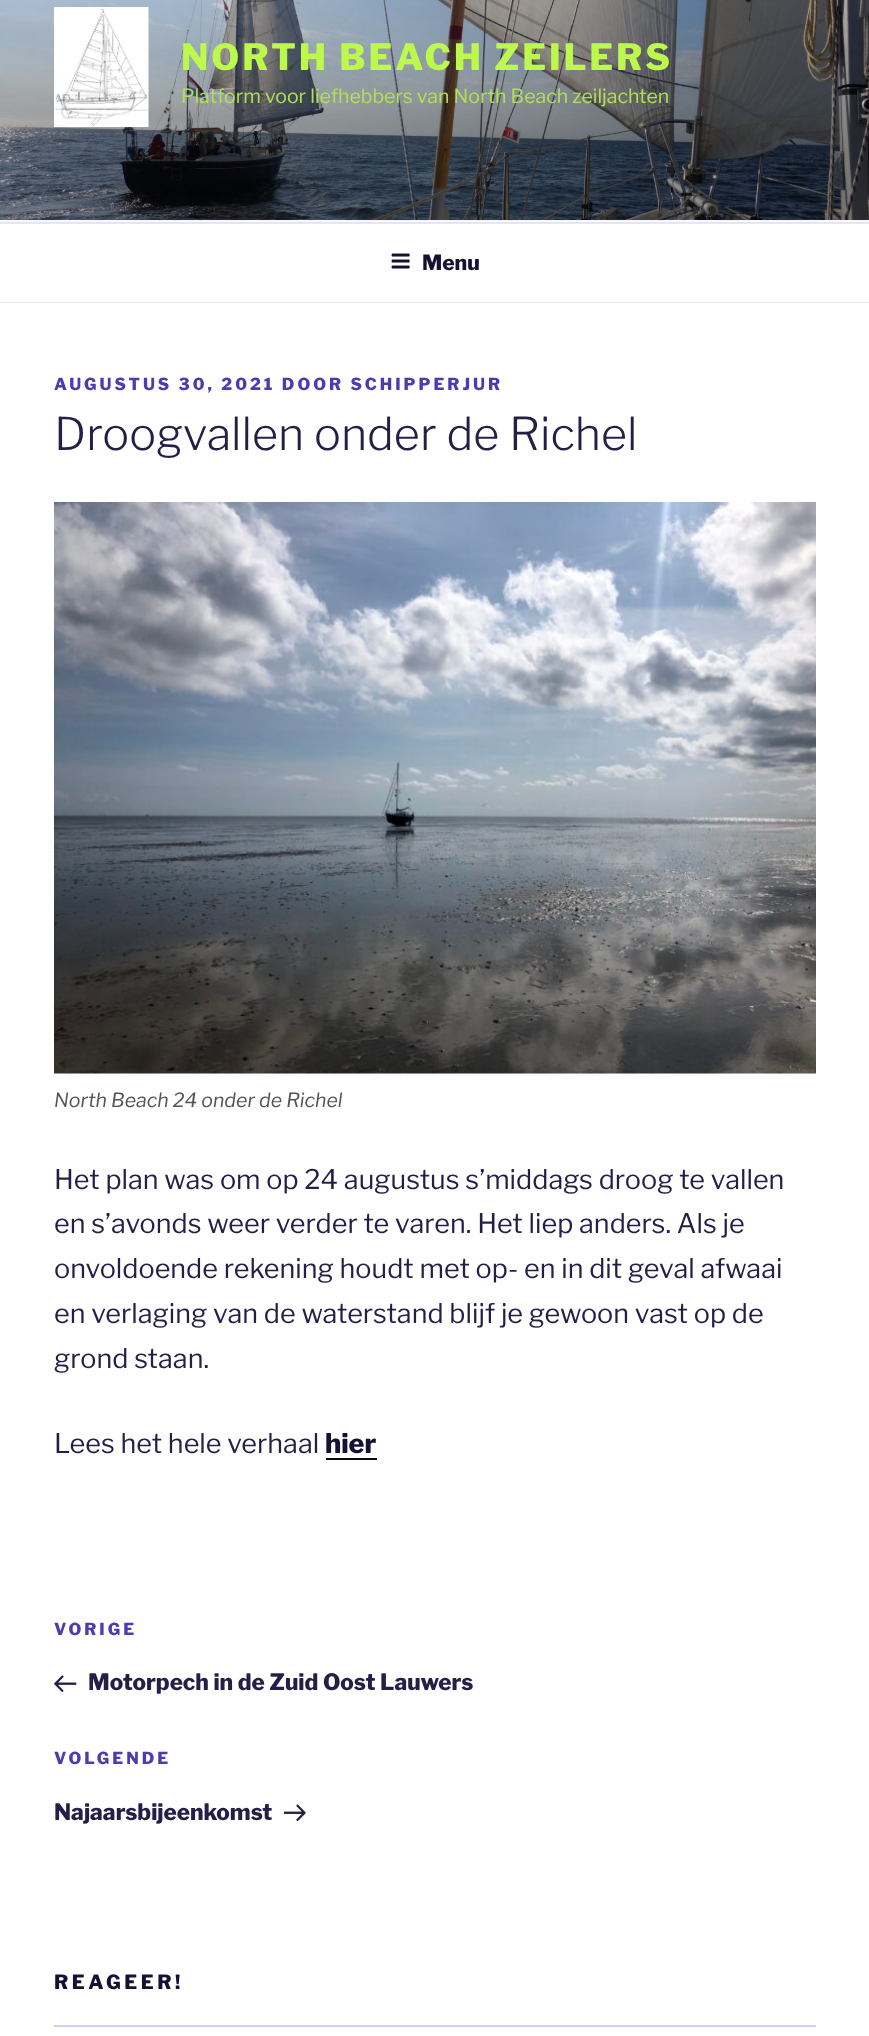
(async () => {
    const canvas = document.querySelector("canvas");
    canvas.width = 869;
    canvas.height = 2036;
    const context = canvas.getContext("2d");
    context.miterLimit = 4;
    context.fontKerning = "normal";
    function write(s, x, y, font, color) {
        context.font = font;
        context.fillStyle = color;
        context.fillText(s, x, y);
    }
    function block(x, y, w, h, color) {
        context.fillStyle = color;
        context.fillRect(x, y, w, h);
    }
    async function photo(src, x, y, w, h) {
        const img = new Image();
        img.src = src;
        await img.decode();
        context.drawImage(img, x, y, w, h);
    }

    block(0, 0, 869, 2036, "rgb(248, 247, 252)");
    await photo("media/1.png", 0, 0, 869, 220);
    await photo("media/2.png", 54, 7, 95, 120);
    context.letterSpacing = "2.9px";
    write("NORTH BEACH ZEILERS", 181, 70, "100 36px Libre Franklin", "rgb(189, 249, 77)");
    context.letterSpacing = "0px";
    write("Platform voor liefhebbers van North Beach zeiljachten", 181, 103, "100 19.5px 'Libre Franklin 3'", "rgb(175, 224, 87)");
    block(0, 224, 869, 78, "rgb(255, 255, 255)");
    block(0, 222, 869, 2, "rgb(231, 228, 246)");
    block(0, 302, 869, 1, "rgb(231, 228, 246)");
    await photo("media/3.png", 391, 253, 19, 16);
    write("Menu", 422, 270, "100 21px Libre Franklin", "rgb(22, 17, 50)");
    block(0, 303, 869, 1733, "rgb(255, 255, 255)");
    context.letterSpacing = "3px";
    write("AUGUSTUS 30, 2021 DOOR SCHIPPERJUR", 54, 390, "100 16.5px Libre Franklin", "rgb(78, 59, 176)");
    context.letterSpacing = "0px";
    write("Droogvallen onder de Richel", 54, 450, "100 45px 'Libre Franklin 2'", "rgb(37, 31, 71)");
    await photo("media/4.png", 54, 502, 762, 572);
    write("North Beach 24 onder de Richel", 54, 1107, "italic 100 19.5px Libre Franklin", "rgb(85, 85, 85)");
    write("Het plan was om op 24 augustus s’middags droog te vallen", 54, 1189, "100 27px 'Libre Franklin 3'", "rgb(37, 31, 71)");
    write("en s’avonds weer verder te varen. Het liep anders. Als je", 54, 1233, "100 27px 'Libre Franklin 3'", "rgb(37, 31, 71)");
    write("onvoldoende rekening houdt met op- en in dit geval afwaai", 54, 1278, "100 27px 'Libre Franklin 3'", "rgb(37, 31, 71)");
    write("en verlaging van de waterstand blijf je gewoon vast op de", 54, 1323, "100 27px 'Libre Franklin 3'", "rgb(37, 31, 71)");
    write("grond staan.", 54, 1368, "100 27px 'Libre Franklin 3'", "rgb(37, 31, 71)");
    write("Lees het hele verhaal", 54, 1453, "100 27px 'Libre Franklin 3'", "rgb(37, 31, 71)");
    write("hier", 325, 1453, "100 27px Libre Franklin", "rgb(22, 17, 50)");
    block(326, 1458, 51, 2, "rgb(10, 8, 23)");
    context.letterSpacing = "3px";
    write("VORIGE", 54, 1635, "100 16.5px Libre Franklin", "rgb(78, 59, 176)");
    await photo("media/5.png", 54, 1675, 23, 18);
    context.letterSpacing = "0px";
    write("Motorpech in de Zuid Oost Lauwers", 88, 1690, "100 22.5px Libre Franklin", "rgb(37, 31, 71)");
    context.letterSpacing = "3px";
    write("VOLGENDE", 54, 1764, "100 16.5px Libre Franklin", "rgb(78, 59, 176)");
    context.letterSpacing = "0px";
    write("Najaarsbijeenkomst", 54, 1820, "100 22.5px Libre Franklin", "rgb(37, 31, 71)");
    await photo("media/6.png", 284, 1804, 22, 18);
    context.letterSpacing = "3.5px";
    write("REAGEER!", 54, 1989, "100 19.5px Libre Franklin", "rgb(22, 17, 50)");
    block(54, 2025, 762, 2, "rgb(211, 205, 238)");
})();
